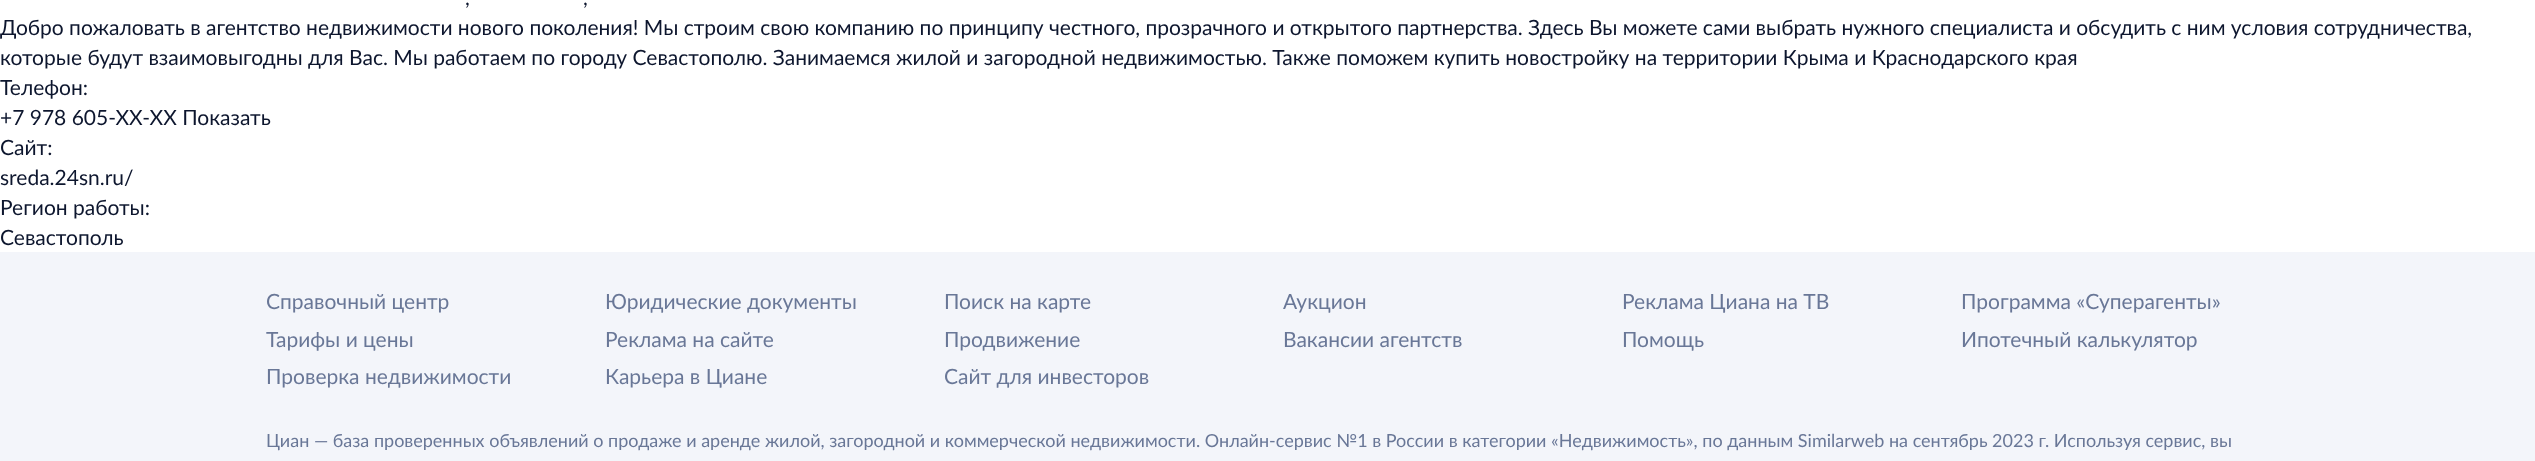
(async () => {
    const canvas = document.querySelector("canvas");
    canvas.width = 2535;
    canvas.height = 461;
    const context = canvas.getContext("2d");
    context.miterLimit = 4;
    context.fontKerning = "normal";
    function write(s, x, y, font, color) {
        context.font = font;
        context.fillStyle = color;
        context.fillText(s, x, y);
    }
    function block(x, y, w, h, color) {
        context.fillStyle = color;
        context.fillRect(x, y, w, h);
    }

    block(0, 0, 2535, 461, "rgb(255, 255, 255)");
    write(",", 465, 5, "21px Lato", "rgb(13, 22, 46)");
    write(",", 583, 5, "21px Lato", "rgb(13, 22, 46)");
    write("Добро пожаловать в агентство недвижимости нового поколения! Мы строим свою компанию по принципу честного, прозрачного и открытого партнерства. Здесь Вы можете сами выбрать нужного специалиста и обсудить с ним условия сотрудничества,", 0, 35, "21px Lato", "rgb(13, 22, 46)");
    write("которые будут взаимовыгодны для Вас. Мы работаем по городу Севастополю. Занимаемся жилой и загородной недвижимостью. Также поможем купить новостройку на территории Крыма и Краснодарского края", 0, 65, "21px Lato", "rgb(13, 22, 46)");
    write("Телефон:", 0, 95, "21px Lato", "rgb(13, 22, 46)");
    write("+7 978 605-XX-XX Показать", 0, 125, "21px Lato", "rgb(13, 22, 46)");
    write("Сайт:", 0, 155, "21px Lato", "rgb(13, 22, 46)");
    write("sreda.24sn.ru/", 0, 185, "21px Lato", "rgb(13, 22, 46)");
    write("Регион работы:", 0, 215, "21px Lato", "rgb(13, 22, 46)");
    write("Севастополь", 0, 245, "21px Lato", "rgb(13, 22, 46)");
    block(0, 252, 2535, 209, "rgb(243, 245, 250)");
    write("Справочный центр", 266, 309, "21px Lato", "rgb(105, 119, 151)");
    write("Юридические документы", 605, 309, "21px Lato", "rgb(105, 119, 151)");
    write("Поиск на карте", 944, 309, "21px Lato", "rgb(105, 119, 151)");
    write("Аукцион", 1283, 309, "21px Lato", "rgb(105, 119, 151)");
    write("Реклама Циана на ТВ", 1622, 309, "21px Lato", "rgb(105, 119, 151)");
    write("Программа «Суперагенты»", 1961, 309, "21px Lato", "rgb(105, 119, 151)");
    write("Тарифы и цены", 266, 347, "21px Lato", "rgb(105, 119, 151)");
    write("Реклама на сайте", 605, 347, "21px Lato", "rgb(105, 119, 151)");
    write("Продвижение", 944, 347, "21px Lato", "rgb(105, 119, 151)");
    write("Вакансии агентств", 1283, 347, "21px Lato", "rgb(105, 119, 151)");
    write("Помощь", 1622, 347, "21px Lato", "rgb(105, 119, 151)");
    write("Ипотечный калькулятор", 1961, 347, "21px Lato", "rgb(105, 119, 151)");
    write("Проверка недвижимости", 266, 384, "21px Lato", "rgb(105, 119, 151)");
    write("Карьера в Циане", 605, 384, "21px Lato", "rgb(105, 119, 151)");
    write("Сайт для инвесторов", 944, 384, "21px Lato", "rgb(105, 119, 151)");
    write("Циан — база проверенных объявлений о продаже и аренде жилой, загородной и коммерческой недвижимости. Онлайн-сервис №1 в России в категории «Недвижимость», по данным Similarweb на сентябрь 2023 г. Используя сервис, вы", 266, 447, "18px Lato", "rgb(105, 119, 151)");
})();
